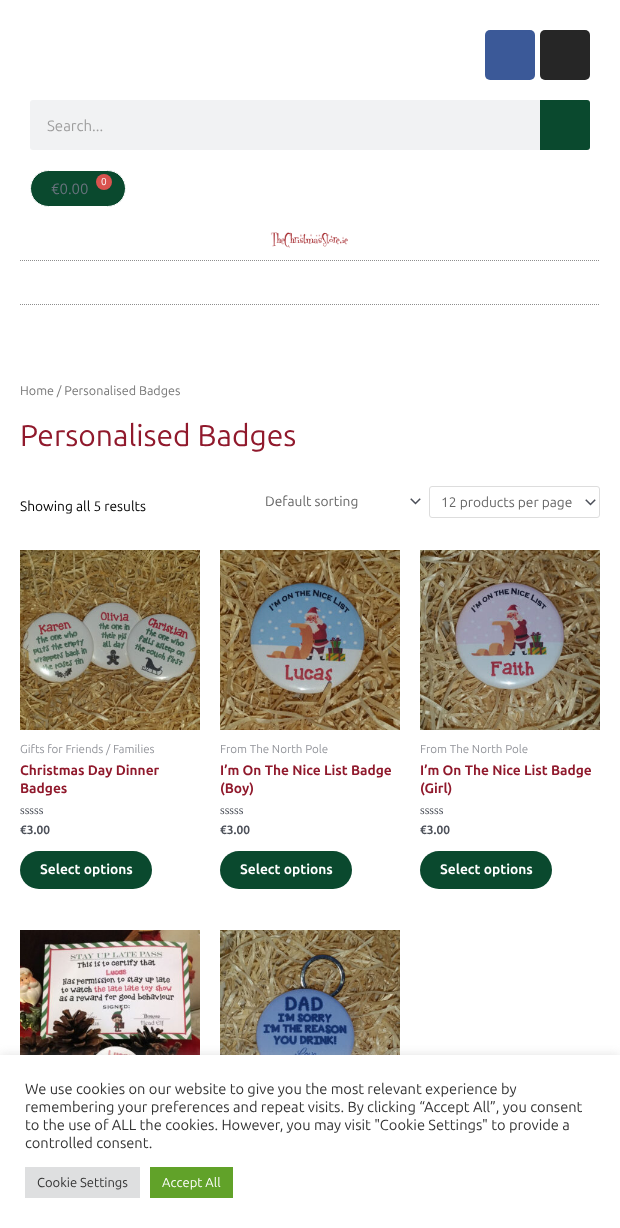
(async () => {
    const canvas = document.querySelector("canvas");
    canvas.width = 620;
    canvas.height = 1228;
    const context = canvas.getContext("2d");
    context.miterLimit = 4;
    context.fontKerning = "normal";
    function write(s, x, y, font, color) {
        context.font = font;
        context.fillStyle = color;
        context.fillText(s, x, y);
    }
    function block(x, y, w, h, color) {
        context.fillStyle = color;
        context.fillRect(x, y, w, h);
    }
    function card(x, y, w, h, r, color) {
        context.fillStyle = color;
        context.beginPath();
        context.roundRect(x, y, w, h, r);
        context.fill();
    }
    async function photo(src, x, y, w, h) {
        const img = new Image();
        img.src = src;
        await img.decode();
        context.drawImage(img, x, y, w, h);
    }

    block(0, 0, 620, 1228, "rgb(255, 255, 255)");
    card(485, 30, 50, 50, 5, "rgb(59, 89, 152)");
    card(540, 30, 50, 50, 5, "rgb(38, 38, 38)");
    card(30, 100, 560, 50, 3, "rgb(241, 242, 243)");
    write("Search...", 47, 131, "15px Ubuntu", "rgb(158, 158, 158)");
    context.fillStyle = "rgb(10, 73, 46)";
    context.beginPath();
    context.roundRect(540, 100, 50, 50, [0, 3, 3, 0]);
    context.fill();
    context.beginPath();
    context.roundRect(30.5, 170.5, 95, 36, 18);
    context.fill();
    context.strokeStyle = "rgb(255, 255, 255)";
    context.stroke();
    context.fillStyle = "rgb(217, 83, 79)";
    context.beginPath();
    context.arc(104, 182, 8, 0, Math.PI * 2);
    context.fill();
    write("0", 101, 185, "10px Ubuntu", "rgb(255, 255, 255)");
    write("€0.00", 51, 194, "15px Ubuntu", "rgb(105, 114, 125)");
    await photo("media/1.png", 270, 232, 78, 16);
    context.beginPath();
    context.moveTo(20, 260.5);
    context.lineTo(600, 260.5);
    context.strokeStyle = "rgb(142, 142, 142)";
    context.setLineDash([1, 1]);
    context.stroke();
    context.beginPath();
    context.moveTo(20, 304.5);
    context.lineTo(600, 304.5);
    context.stroke();
    write("Home / Personalised Badges", 20, 395, "12.6px Ubuntu", "rgb(119, 119, 119)");
    write("Personalised Badges", 20, 446, "30px Ubuntu", "rgb(144, 25, 44)");
    write("Showing all 5 results", 20, 511, "13.75px Ubuntu", "rgb(0, 0, 0)");
    await photo("media/2.png", 410, 498, 11, 7);
    write("Default sorting", 265, 506, "13.75px Ubuntu", "rgb(102, 102, 102)");
    await photo("media/2.png", 585, 499, 11, 7);
    context.beginPath();
    context.roundRect(429.5, 486.5, 170, 31, 2.5);
    context.strokeStyle = "rgb(221, 221, 221)";
    context.setLineDash([]);
    context.stroke();
    write("12 products per page", 441, 507, "13.75px Ubuntu", "rgb(102, 102, 102)");
    await photo("media/3.png", 20, 550, 180, 180);
    write("Gifts for Friends / Families", 20, 753, "11.6px Ubuntu", "rgb(147, 149, 155)");
    write("Christmas Day Dinner", 20, 775, "bold 13.75px Ubuntu", "rgb(144, 25, 44)");
    write("Badges", 20, 793, "bold 13.75px Ubuntu", "rgb(144, 25, 44)");
    write("sssss", 20, 814, "12px Liberation Serif", "rgb(75, 79, 88)");
    write("€3.00", 20, 834, "bold 12px Ubuntu", "rgb(75, 79, 88)");
    card(20, 851, 132, 38, 19, "rgb(10, 73, 46)");
    write("Select options", 40, 874, "bold 13.75px Ubuntu", "rgb(255, 255, 255)");
    await photo("media/4.png", 220, 550, 180, 180);
    write("From The North Pole", 220, 753, "11.6px Ubuntu", "rgb(147, 149, 155)");
    write("I’m On The Nice List Badge", 220, 775, "bold 13.75px Ubuntu", "rgb(144, 25, 44)");
    write("(Boy)", 220, 793, "bold 13.75px Ubuntu", "rgb(144, 25, 44)");
    write("sssss", 220, 814, "12px Liberation Serif", "rgb(75, 79, 88)");
    write("€3.00", 220, 834, "bold 12px Ubuntu", "rgb(75, 79, 88)");
    card(220, 851, 132, 38, 19, "rgb(10, 73, 46)");
    write("Select options", 240, 874, "bold 13.75px Ubuntu", "rgb(255, 255, 255)");
    await photo("media/5.png", 420, 550, 180, 180);
    write("From The North Pole", 420, 753, "11.6px Ubuntu", "rgb(147, 149, 155)");
    write("I’m On The Nice List Badge", 420, 775, "bold 13.75px Ubuntu", "rgb(144, 25, 44)");
    write("(Girl)", 420, 793, "bold 13.75px Ubuntu", "rgb(144, 25, 44)");
    write("sssss", 420, 814, "12px Liberation Serif", "rgb(75, 79, 88)");
    write("€3.00", 420, 834, "bold 12px Ubuntu", "rgb(75, 79, 88)");
    card(420, 851, 132, 38, 19, "rgb(10, 73, 46)");
    write("Select options", 440, 874, "bold 13.75px Ubuntu", "rgb(255, 255, 255)");
    await photo("media/6.png", 20, 930, 180, 125);
    await photo("media/7.png", 220, 930, 180, 125);
    context.fillStyle = "rgba(172, 171, 171, 0.3)";
    context.filter = "blur(5px)";
    context.beginPath();
    context.rect(0, 1054, 620, 173);
    context.fill();
    context.filter = "none";
    block(0, 1055, 620, 173, "rgb(255, 255, 255)");
    write("We use cookies on our website to give you the most relevant experience by", 25, 1094, "14.65px Ubuntu", "rgb(51, 51, 51)");
    write("remembering your preferences and repeat visits. By clicking “Accept All”, you consent", 25, 1112, "14.65px Ubuntu", "rgb(51, 51, 51)");
    write("to the use of ALL the cookies. However, you may visit \"Cookie Settings\" to provide a", 25, 1130, "14.65px Ubuntu", "rgb(51, 51, 51)");
    write("controlled consent.", 25, 1148, "14.65px Ubuntu", "rgb(51, 51, 51)");
    block(25, 1167, 115, 31, "rgb(222, 223, 224)");
    write("Cookie Settings", 37, 1187, "13px Ubuntu", "rgb(51, 51, 51)");
    block(150, 1167, 83, 31, "rgb(97, 162, 41)");
    write("Accept All", 162, 1187, "13px Ubuntu", "rgb(255, 255, 255)");
})();
